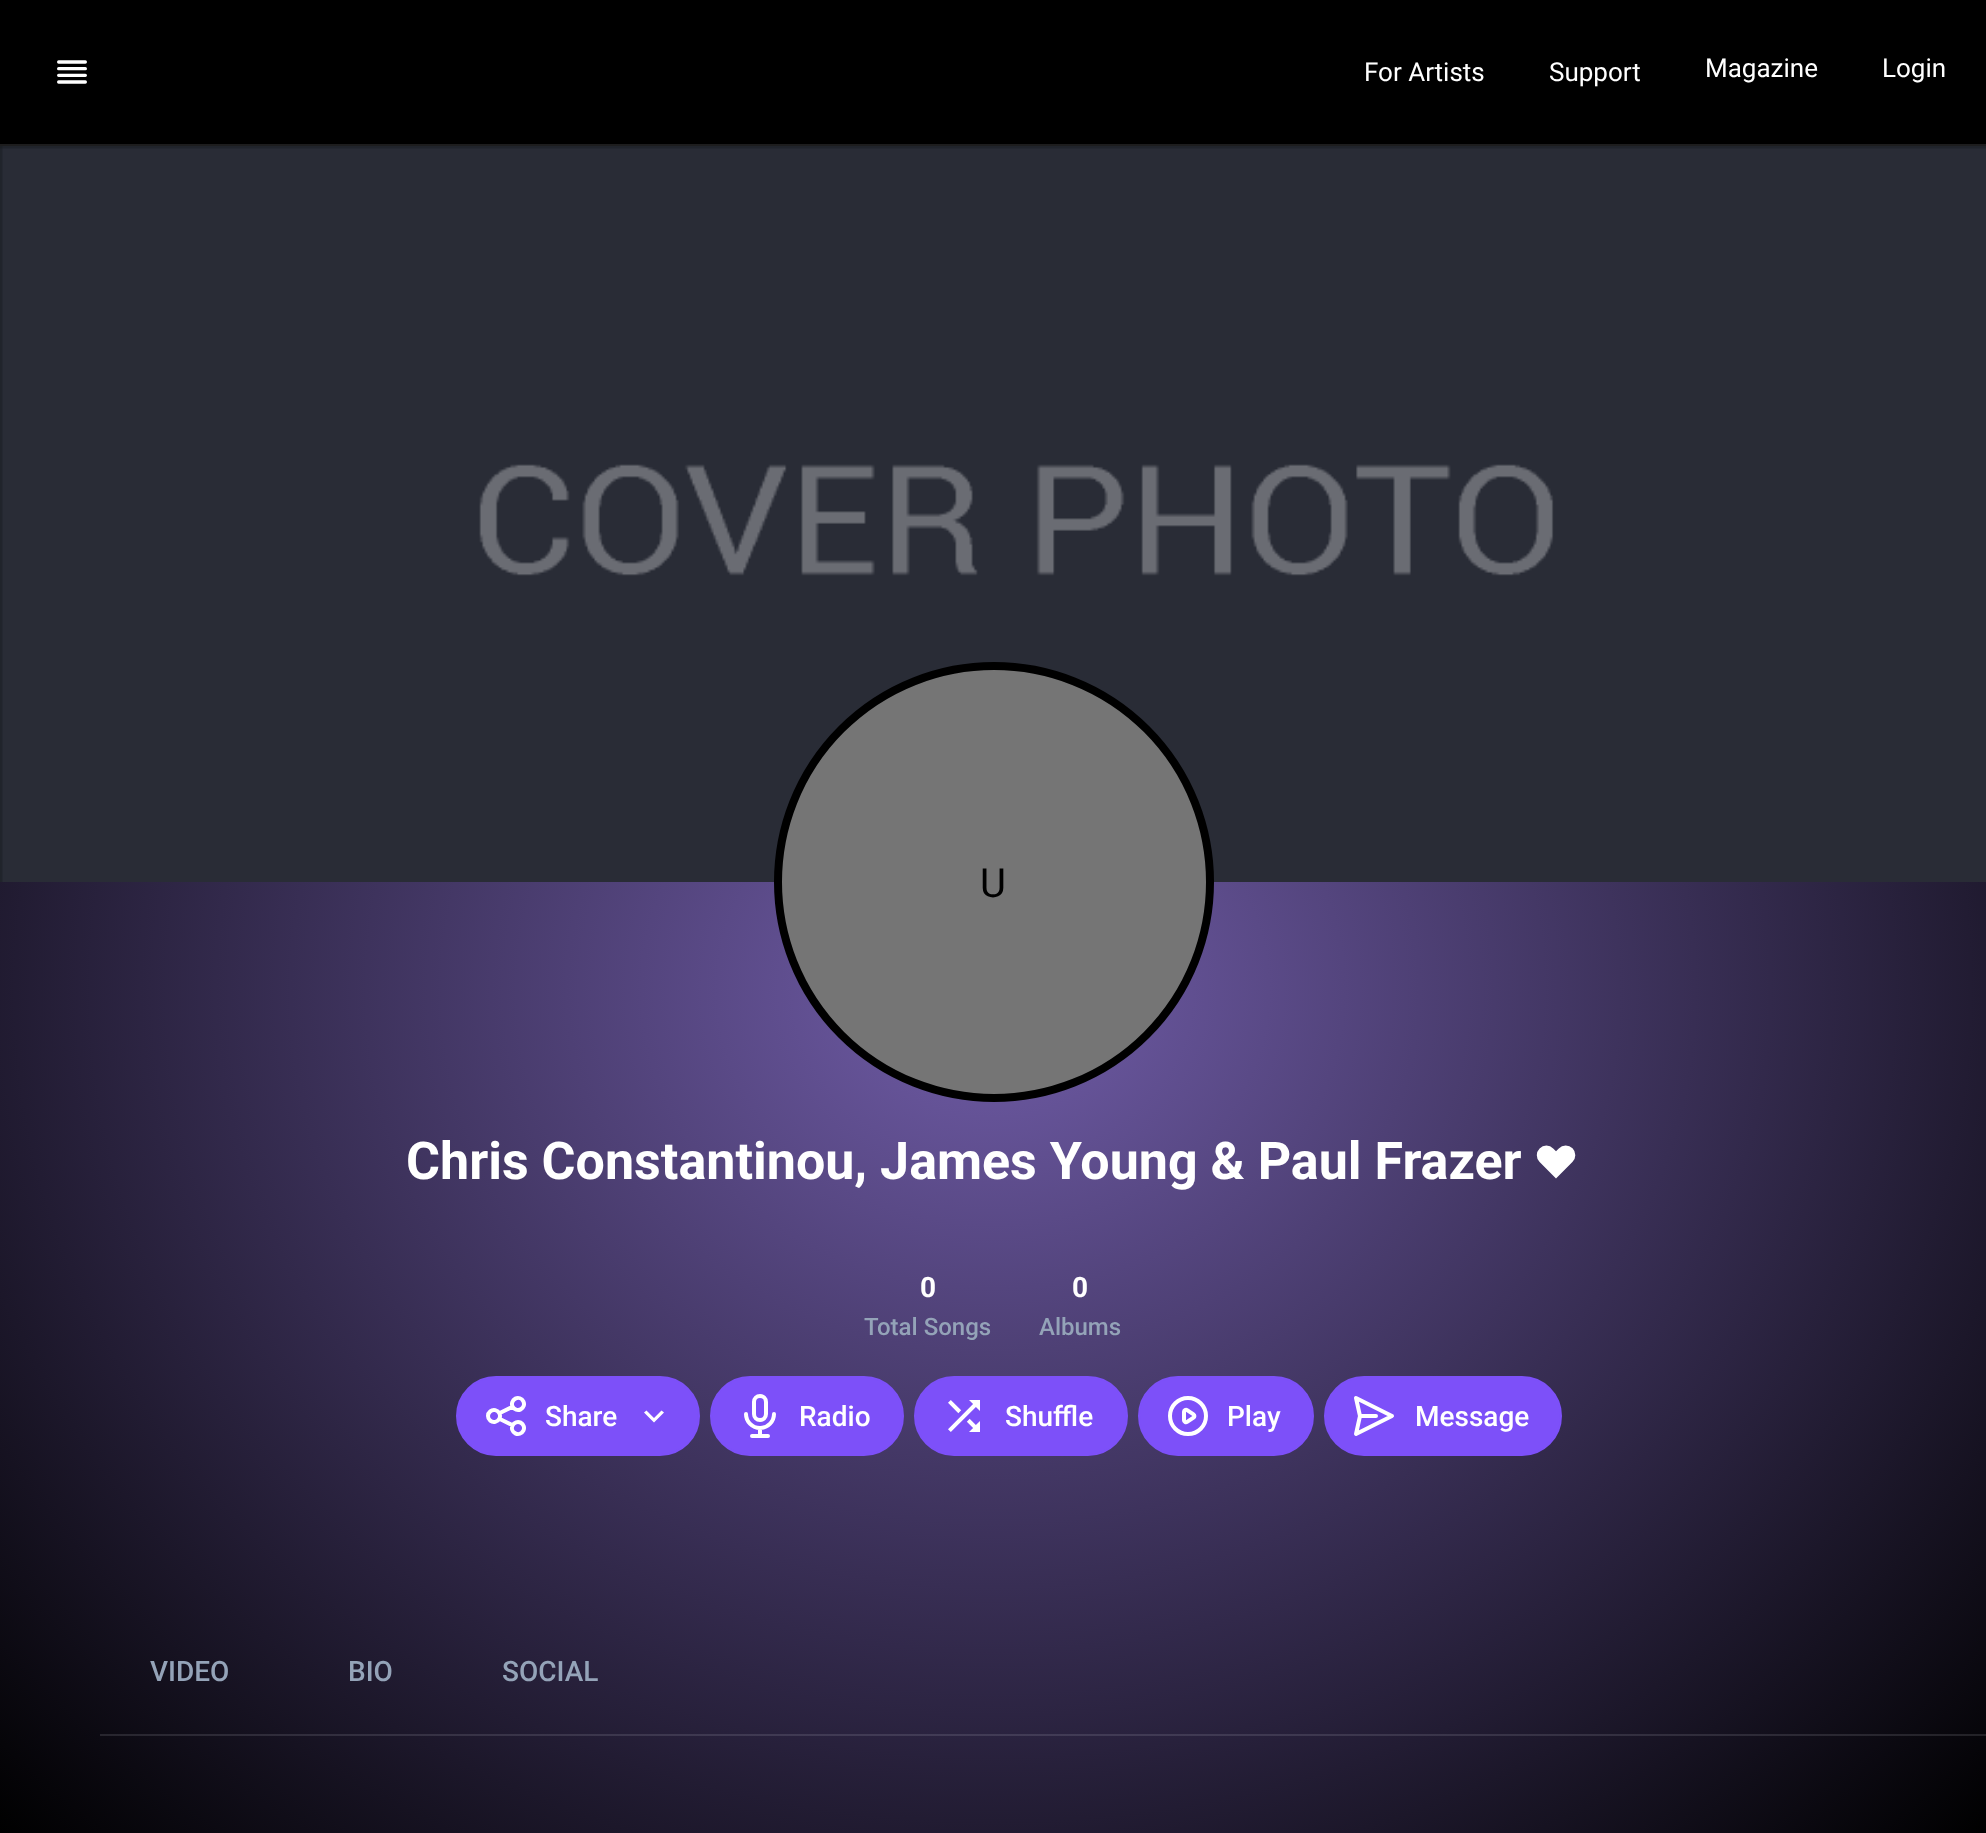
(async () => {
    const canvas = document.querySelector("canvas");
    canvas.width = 1986;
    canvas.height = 1833;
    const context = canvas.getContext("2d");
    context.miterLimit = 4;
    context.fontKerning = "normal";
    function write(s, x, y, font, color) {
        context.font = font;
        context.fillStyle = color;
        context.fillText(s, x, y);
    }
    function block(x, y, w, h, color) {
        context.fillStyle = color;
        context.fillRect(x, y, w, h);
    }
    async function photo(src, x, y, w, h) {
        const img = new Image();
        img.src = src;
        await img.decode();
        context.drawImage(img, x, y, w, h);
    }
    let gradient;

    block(0, 0, 1986, 1833, "rgb(0, 0, 0)");
    block(0, 144, 1986, 2, "rgb(29, 29, 30)");
    await photo("media/1.png", 57, 60, 30, 24);
    write("For Artists", 1364, 81, "26px Roboto", "rgb(255, 255, 255)");
    write("Support", 1549, 81, "26px Roboto", "rgb(255, 255, 255)");
    write("Magazine", 1705, 77, "26px Roboto", "rgb(255, 255, 255)");
    write("Login", 1882, 77, "26px Roboto", "rgb(255, 255, 255)");
    gradient = context.createRadialGradient(993, 1164.12, 0, 993, 1164.12, 1404);
    gradient.addColorStop(0, "rgb(112, 92, 168)");
    gradient.addColorStop(1, "rgb(0, 0, 0)");
    context.fillStyle = gradient;
    context.beginPath();
    context.rect(0, 882, 1986, 951);
    context.save();
    context.clip();
    context.scale(1, 1194 / 1404);
    context.fillRect(0, 0, 1986, 2156);
    context.restore();
    gradient = context.createRadialGradient(993, 1164.12, 0, 993, 1164.12, 1404);
    gradient.addColorStop(0, "rgb(127, 110, 178)");
    gradient.addColorStop(1, "rgb(29, 29, 30)");
    context.fillStyle = gradient;
    context.beginPath();
    context.rect(100, 1734, 1886, 2);
    context.save();
    context.clip();
    context.scale(1, 1194 / 1404);
    context.fillRect(0, 0, 1986, 2156);
    context.restore();
    block(0, 146, 1986, 736, "rgb(25, 28, 33)");
    await photo("media/2.png", 0, 146, 1986, 736);
    context.fillStyle = "rgb(117, 117, 117)";
    context.beginPath();
    context.arc(994, 882, 216, 0, Math.PI * 2);
    context.fill();
    context.strokeStyle = "rgb(0, 0, 0)";
    context.lineWidth = 8;
    context.stroke();
    write("U", 980, 897, "40px Roboto", "rgb(0, 0, 0)");
    write("Chris Constantinou, James Young & Paul Frazer", 406, 1179, "bold 52px Roboto", "rgb(255, 255, 255)");
    await photo("media/3.png", 1536, 1145, 40, 34);
    write("0", 920, 1297, "bold 28px Roboto", "rgb(255, 255, 255)");
    write("Total Songs", 864, 1335, "500 24px Roboto", "rgb(148, 163, 184)");
    write("0", 1072, 1297, "bold 28px Roboto", "rgb(255, 255, 255)");
    write("Albums", 1039, 1335, "500 24px Roboto", "rgb(148, 163, 184)");
    context.fillStyle = "rgb(125, 80, 249)";
    context.beginPath();
    context.roundRect(457, 1377, 242, 78, 39);
    context.fill();
    context.strokeStyle = "rgb(125, 80, 249)";
    context.lineWidth = 2;
    context.stroke();
    await photo("media/4.png", 486, 1396, 40, 40);
    write("Share", 545, 1426, "500 28px Roboto", "rgb(255, 255, 255)");
    context.beginPath();
    context.moveTo(646.5, 1410.5);
    context.lineTo(654, 1418);
    context.lineTo(661.5, 1410.5);
    context.lineTo(664, 1412.5);
    context.lineTo(654, 1422.5);
    context.lineTo(644, 1412.5);
    context.closePath();
    context.fill();
    context.fillStyle = "rgb(125, 80, 249)";
    context.beginPath();
    context.roundRect(711, 1377, 192, 78, 39);
    context.fill();
    context.stroke();
    await photo("media/5.png", 744, 1394, 32, 44);
    write("Radio", 799, 1426, "500 28px Roboto", "rgb(255, 255, 255)");
    context.fillStyle = "rgb(125, 80, 249)";
    context.beginPath();
    context.roundRect(915, 1377, 212, 78, 39);
    context.fill();
    context.stroke();
    await photo("media/6.png", 948, 1400, 32, 32);
    write("Shuffle", 1005, 1426, "500 28px Roboto", "rgb(255, 255, 255)");
    context.fillStyle = "rgb(125, 80, 249)";
    context.beginPath();
    context.roundRect(1139, 1377, 174, 78, 39);
    context.fill();
    context.stroke();
    await photo("media/7.png", 1168, 1396, 40, 40);
    write("Play", 1227, 1426, "500 28px Roboto", "rgb(255, 255, 255)");
    context.fillStyle = "rgb(125, 80, 249)";
    context.beginPath();
    context.roundRect(1325, 1377, 236, 78, 39);
    context.fill();
    context.stroke();
    await photo("media/8.png", 1354, 1396, 40, 40);
    write("Message", 1415, 1426, "500 28px Roboto", "rgb(255, 255, 255)");
    write("VIDEO", 150, 1681, "500 28px Roboto", "rgb(148, 163, 184)");
    write("BIO", 348, 1681, "500 28px Roboto", "rgb(148, 163, 184)");
    write("SOCIAL", 502, 1681, "500 28px Roboto", "rgb(148, 163, 184)");
})();
